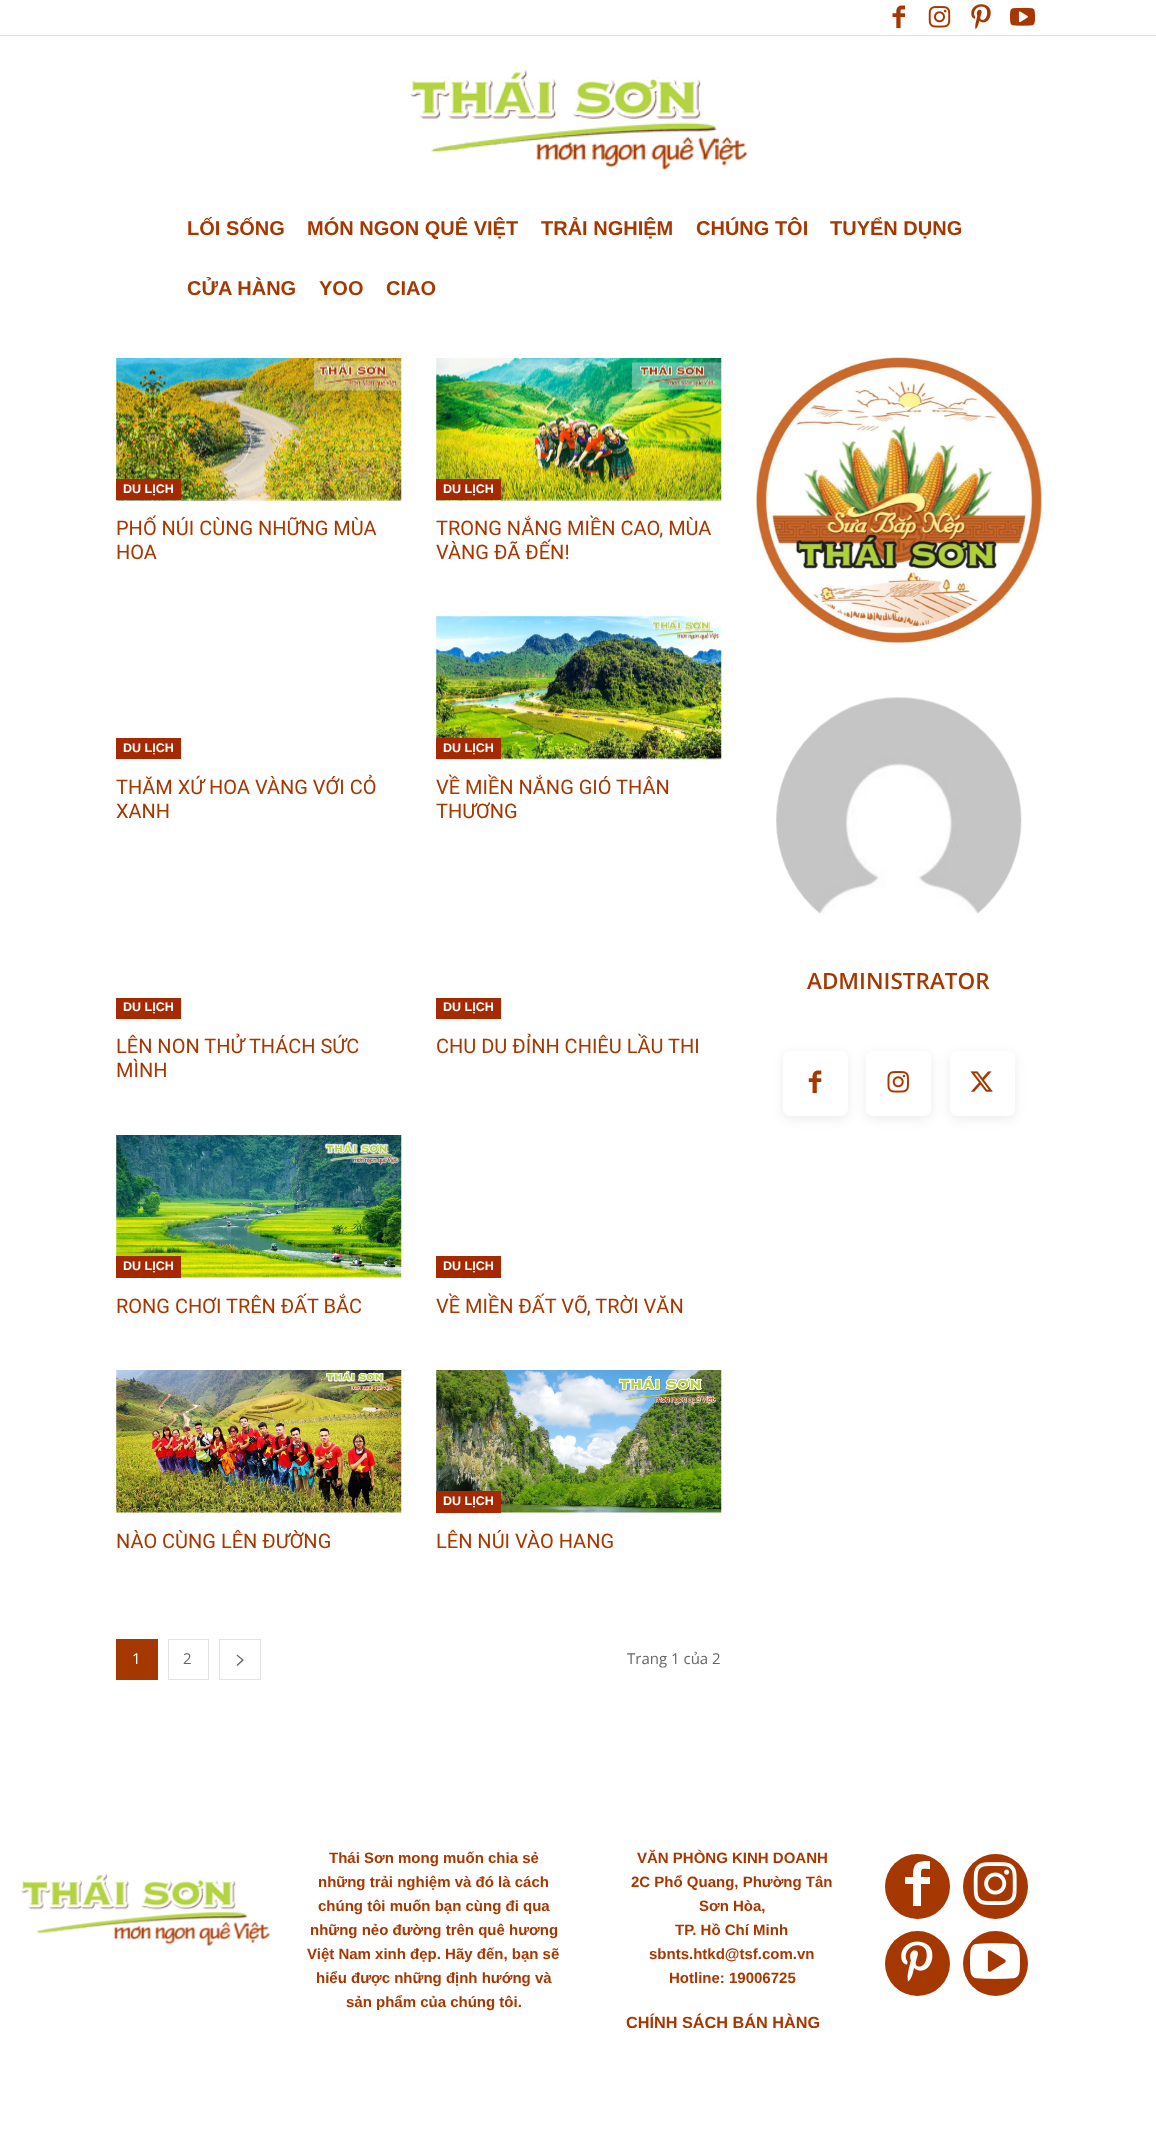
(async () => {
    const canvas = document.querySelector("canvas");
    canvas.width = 1156;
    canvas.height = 2153;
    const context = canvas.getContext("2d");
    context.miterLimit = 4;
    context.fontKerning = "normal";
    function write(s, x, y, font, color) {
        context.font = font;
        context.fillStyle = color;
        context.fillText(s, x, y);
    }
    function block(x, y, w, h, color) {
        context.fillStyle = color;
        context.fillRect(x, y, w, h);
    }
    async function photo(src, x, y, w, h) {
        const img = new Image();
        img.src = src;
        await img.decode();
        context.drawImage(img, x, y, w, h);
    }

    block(0, 0, 1156, 2153, "rgb(255, 255, 255)");
    block(0, 35, 1156, 1, "rgb(224, 224, 224)");
    await photo("media/1.png", 892, 5, 13, 24);
    await photo("media/2.png", 928, 6, 23, 22);
    await photo("media/3.png", 971, 4, 20, 26);
    await photo("media/4.png", 1010, 7, 25, 19);
    await photo("media/5.png", 409, 69, 339, 101);
    write("LỐI SỐNG", 187, 235, "bold 20px Liberation Sans", "rgb(165, 56, 0)");
    write("MÓN NGON QUÊ VIỆT", 307, 235, "bold 20px Liberation Sans", "rgb(165, 56, 0)");
    write("TRẢI NGHIỆM", 541, 235, "bold 20px Liberation Sans", "rgb(165, 56, 0)");
    write("CHÚNG TÔI", 696, 235, "bold 20px Liberation Sans", "rgb(165, 56, 0)");
    write("TUYỂN DỤNG", 830, 235, "bold 20px Liberation Sans", "rgb(165, 56, 0)");
    write("CỬA HÀNG", 187, 295, "bold 20px Liberation Sans", "rgb(165, 56, 0)");
    write("YOO", 319, 295, "bold 20px Liberation Sans", "rgb(165, 56, 0)");
    write("CIAO", 386, 295, "bold 20px Liberation Sans", "rgb(165, 56, 0)");
    await photo("media/6.png", 116, 358, 286, 143);
    block(116, 479, 65, 21, "rgb(165, 42, 1)");
    write("DU LỊCH", 123, 493, "bold 12.5px Liberation Sans", "rgb(255, 255, 255)");
    write("PHỐ NÚI CÙNG NHỮNG MÙA", 116, 535, "20px Roboto", "rgb(165, 56, 0)");
    write("HOA", 116, 559, "20px Roboto", "rgb(165, 56, 0)");
    await photo("media/7.png", 436, 358, 286, 143);
    block(436, 479, 65, 21, "rgb(165, 42, 1)");
    write("DU LỊCH", 443, 493, "bold 12.5px Liberation Sans", "rgb(255, 255, 255)");
    write("TRONG NẮNG MIỀN CAO, MÙA", 436, 535, "20px Roboto", "rgb(165, 56, 0)");
    write("VÀNG ĐÃ ĐẾN!", 436, 559, "20px Roboto", "rgb(165, 56, 0)");
    block(116, 738, 65, 21, "rgb(165, 42, 1)");
    write("DU LỊCH", 123, 752, "bold 12.5px Liberation Sans", "rgb(255, 255, 255)");
    write("THĂM XỨ HOA VÀNG VỚI CỎ", 116, 794, "20px Roboto", "rgb(165, 56, 0)");
    write("XANH", 116, 818, "20px Roboto", "rgb(165, 56, 0)");
    await photo("media/8.png", 436, 616, 286, 144);
    block(436, 738, 65, 21, "rgb(165, 42, 1)");
    write("DU LỊCH", 443, 752, "bold 12.5px Liberation Sans", "rgb(255, 255, 255)");
    write("VỀ MIỀN NẮNG GIÓ THÂN", 436, 794, "20px Roboto", "rgb(165, 56, 0)");
    write("THƯƠNG", 436, 818, "20px Roboto", "rgb(165, 56, 0)");
    block(116, 998, 65, 21, "rgb(165, 42, 1)");
    write("DU LỊCH", 123, 1011, "bold 12.5px Liberation Sans", "rgb(255, 255, 255)");
    write("LÊN NON THỬ THÁCH SỨC", 116, 1053, "20px Roboto", "rgb(165, 56, 0)");
    write("MÌNH", 116, 1077, "20px Roboto", "rgb(165, 56, 0)");
    block(436, 998, 65, 21, "rgb(165, 42, 1)");
    write("DU LỊCH", 443, 1011, "bold 12.5px Liberation Sans", "rgb(255, 255, 255)");
    write("CHU DU ĐỈNH CHIÊU LẦU THI", 436, 1053, "20px Roboto", "rgb(165, 56, 0)");
    await photo("media/9.png", 116, 1135, 286, 143);
    block(116, 1256, 65, 22, "rgb(165, 42, 1)");
    write("DU LỊCH", 123, 1270, "bold 12.5px Liberation Sans", "rgb(255, 255, 255)");
    write("RONG CHƠI TRÊN ĐẤT BẮC", 116, 1313, "20px Roboto", "rgb(165, 56, 0)");
    block(436, 1256, 65, 22, "rgb(165, 42, 1)");
    write("DU LỊCH", 443, 1270, "bold 12.5px Liberation Sans", "rgb(255, 255, 255)");
    write("VỀ MIỀN ĐẤT VÕ, TRỜI VĂN", 436, 1313, "20px Roboto", "rgb(165, 56, 0)");
    await photo("media/10.png", 116, 1370, 286, 143);
    write("NÀO CÙNG LÊN ĐƯỜNG", 116, 1548, "20px Roboto", "rgb(165, 56, 0)");
    await photo("media/11.png", 436, 1370, 286, 143);
    block(436, 1491, 65, 22, "rgb(165, 42, 1)");
    write("DU LỊCH", 443, 1505, "bold 12.5px Liberation Sans", "rgb(255, 255, 255)");
    write("LÊN NÚI VÀO HANG", 436, 1548, "20px Roboto", "rgb(165, 56, 0)");
    block(116, 1639, 42, 41, "rgb(165, 55, 0)");
    write("1", 132, 1664, "15px Open Sans", "rgb(255, 255, 255)");
    context.strokeStyle = "rgb(227, 227, 227)";
    context.strokeRect(168.5, 1639.5, 40, 40);
    write("2", 183, 1664, "15px Open Sans", "rgb(102, 102, 102)");
    context.strokeRect(219.5, 1639.5, 41, 40);
    await photo("media/12.png", 236, 1654, 8, 12);
    write("Trang 1 của 2", 627, 1664, "15px Open Sans", "rgb(102, 102, 102)");
    await photo("media/13.png", 755, 357, 287, 286);
    await photo("media/14.png", 776, 697, 246, 217);
    write("ADMINISTRATOR", 807, 989, "600 22.5px Open Sans", "rgb(165, 56, 0)");
    context.save();
    context.beginPath();
    context.moveTo(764, 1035);
    context.lineTo(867, 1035);
    context.lineTo(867, 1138);
    context.lineTo(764, 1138);
    context.closePath();
    context.moveTo(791, 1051);
    context.lineTo(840, 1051);
    context.bezierCurveTo(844.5, 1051, 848, 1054.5, 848, 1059);
    context.lineTo(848, 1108);
    context.bezierCurveTo(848, 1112.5, 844.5, 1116, 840, 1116);
    context.lineTo(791, 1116);
    context.bezierCurveTo(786.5, 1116, 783, 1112.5, 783, 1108);
    context.lineTo(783, 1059);
    context.bezierCurveTo(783, 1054.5, 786.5, 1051, 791, 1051);
    context.closePath();
    context.clip("evenodd");
    context.fillStyle = "rgba(0, 0, 0, 0.08)";
    context.filter = "blur(6px)";
    context.beginPath();
    context.roundRect(783, 1054, 65, 65, 8);
    context.fill();
    context.filter = "none";
    context.restore();
    await photo("media/15.png", 808, 1070, 14, 24);
    context.save();
    context.beginPath();
    context.moveTo(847, 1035);
    context.lineTo(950, 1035);
    context.lineTo(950, 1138);
    context.lineTo(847, 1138);
    context.closePath();
    context.moveTo(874, 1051);
    context.lineTo(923, 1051);
    context.bezierCurveTo(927.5, 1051, 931, 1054.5, 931, 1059);
    context.lineTo(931, 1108);
    context.bezierCurveTo(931, 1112.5, 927.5, 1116, 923, 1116);
    context.lineTo(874, 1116);
    context.bezierCurveTo(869.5, 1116, 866, 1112.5, 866, 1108);
    context.lineTo(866, 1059);
    context.bezierCurveTo(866, 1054.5, 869.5, 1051, 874, 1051);
    context.closePath();
    context.clip("evenodd");
    context.fillStyle = "rgba(0, 0, 0, 0.08)";
    context.filter = "blur(6px)";
    context.beginPath();
    context.roundRect(866, 1054, 65, 65, 8);
    context.fill();
    context.filter = "none";
    context.restore();
    await photo("media/16.png", 887, 1071, 22, 22);
    context.save();
    context.beginPath();
    context.moveTo(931, 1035);
    context.lineTo(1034, 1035);
    context.lineTo(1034, 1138);
    context.lineTo(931, 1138);
    context.closePath();
    context.moveTo(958, 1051);
    context.lineTo(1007, 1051);
    context.bezierCurveTo(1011.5, 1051, 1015, 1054.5, 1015, 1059);
    context.lineTo(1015, 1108);
    context.bezierCurveTo(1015, 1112.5, 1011.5, 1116, 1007, 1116);
    context.lineTo(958, 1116);
    context.bezierCurveTo(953.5, 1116, 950, 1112.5, 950, 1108);
    context.lineTo(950, 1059);
    context.bezierCurveTo(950, 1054.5, 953.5, 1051, 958, 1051);
    context.closePath();
    context.clip("evenodd");
    context.fillStyle = "rgba(0, 0, 0, 0.08)";
    context.filter = "blur(6px)";
    context.beginPath();
    context.roundRect(950, 1054, 65, 65, 8);
    context.fill();
    context.filter = "none";
    context.restore();
    await photo("media/17.png", 970, 1071, 23, 21);
    await photo("media/18.png", 21, 1872, 250, 75);
    write("Thái Sơn mong muốn chia sẻ", 329, 1863, "bold 15px Liberation Sans", "rgb(165, 56, 0)");
    write("những trải nghiệm và đó là cách", 318, 1887, "bold 15px Liberation Sans", "rgb(165, 56, 0)");
    write("chúng tôi muốn bạn cùng đi qua", 318, 1911, "bold 15px Liberation Sans", "rgb(165, 56, 0)");
    write("những nẻo đường trên quê hương", 310, 1935, "bold 15px Liberation Sans", "rgb(165, 56, 0)");
    write("Việt Nam xinh đẹp. Hãy đến, bạn sẽ", 307, 1959, "bold 15px Liberation Sans", "rgb(165, 56, 0)");
    write("hiểu được những định hướng và", 316, 1983, "bold 15px Liberation Sans", "rgb(165, 56, 0)");
    write("sản phẩm của chúng tôi.", 346, 2007, "bold 15px Liberation Sans", "rgb(165, 56, 0)");
    write("VĂN PHÒNG KINH DOANH", 637, 1863, "bold 15px Liberation Sans", "rgb(165, 56, 0)");
    write("2C Phổ Quang, Phường Tân", 631, 1887, "bold 15px Liberation Sans", "rgb(165, 56, 0)");
    write("Sơn Hòa,", 699, 1911, "bold 15px Liberation Sans", "rgb(165, 56, 0)");
    write("TP. Hồ Chí Minh", 675, 1935, "bold 15px Liberation Sans", "rgb(165, 56, 0)");
    write("sbnts.htkd@tsf.com.vn", 649, 1959, "bold 15px Liberation Sans", "rgb(165, 56, 0)");
    write("Hotline: 19006725", 669, 1983, "bold 15px Liberation Sans", "rgb(165, 56, 0)");
    context.save();
    context.beginPath();
    context.rect(0, 0, 1156, 2028);
    context.clip();
    write("CHÍNH SÁCH BÁN HÀNG", 626, 2028, "bold 16.25px Liberation Sans", "rgb(165, 56, 0)");
    context.restore();
    context.beginPath();
    context.arc(917.5, 1886.5, 32.5, 0, Math.PI * 2);
    context.fill();
    context.fillStyle = "rgb(255, 255, 255)";
    context.beginPath();
    context.moveTo(930, 1869);
    context.bezierCurveTo(921, 1869, 921, 1867, 921, 1877);
    context.lineTo(930, 1877);
    context.lineTo(930, 1884);
    context.lineTo(921, 1884);
    context.lineTo(921, 1906);
    context.lineTo(913, 1906);
    context.lineTo(913, 1884);
    context.lineTo(905, 1884);
    context.lineTo(905, 1877);
    context.lineTo(913, 1877);
    context.bezierCurveTo(913, 1862, 917, 1861, 930, 1861);
    context.closePath();
    context.fill();
    context.fillStyle = "rgb(165, 56, 0)";
    context.beginPath();
    context.arc(995.5, 1886.5, 32.5, 0, Math.PI * 2);
    context.fill();
    await photo("media/19.png", 973, 1862, 44, 43);
    context.beginPath();
    context.arc(917.5, 1963.5, 32.5, 0, Math.PI * 2);
    context.fill();
    await photo("media/20.png", 901, 1941, 32, 41);
    context.beginPath();
    context.arc(995.5, 1963.5, 32.5, 0, Math.PI * 2);
    context.fill();
    await photo("media/21.png", 970, 1943, 50, 36);
})();
